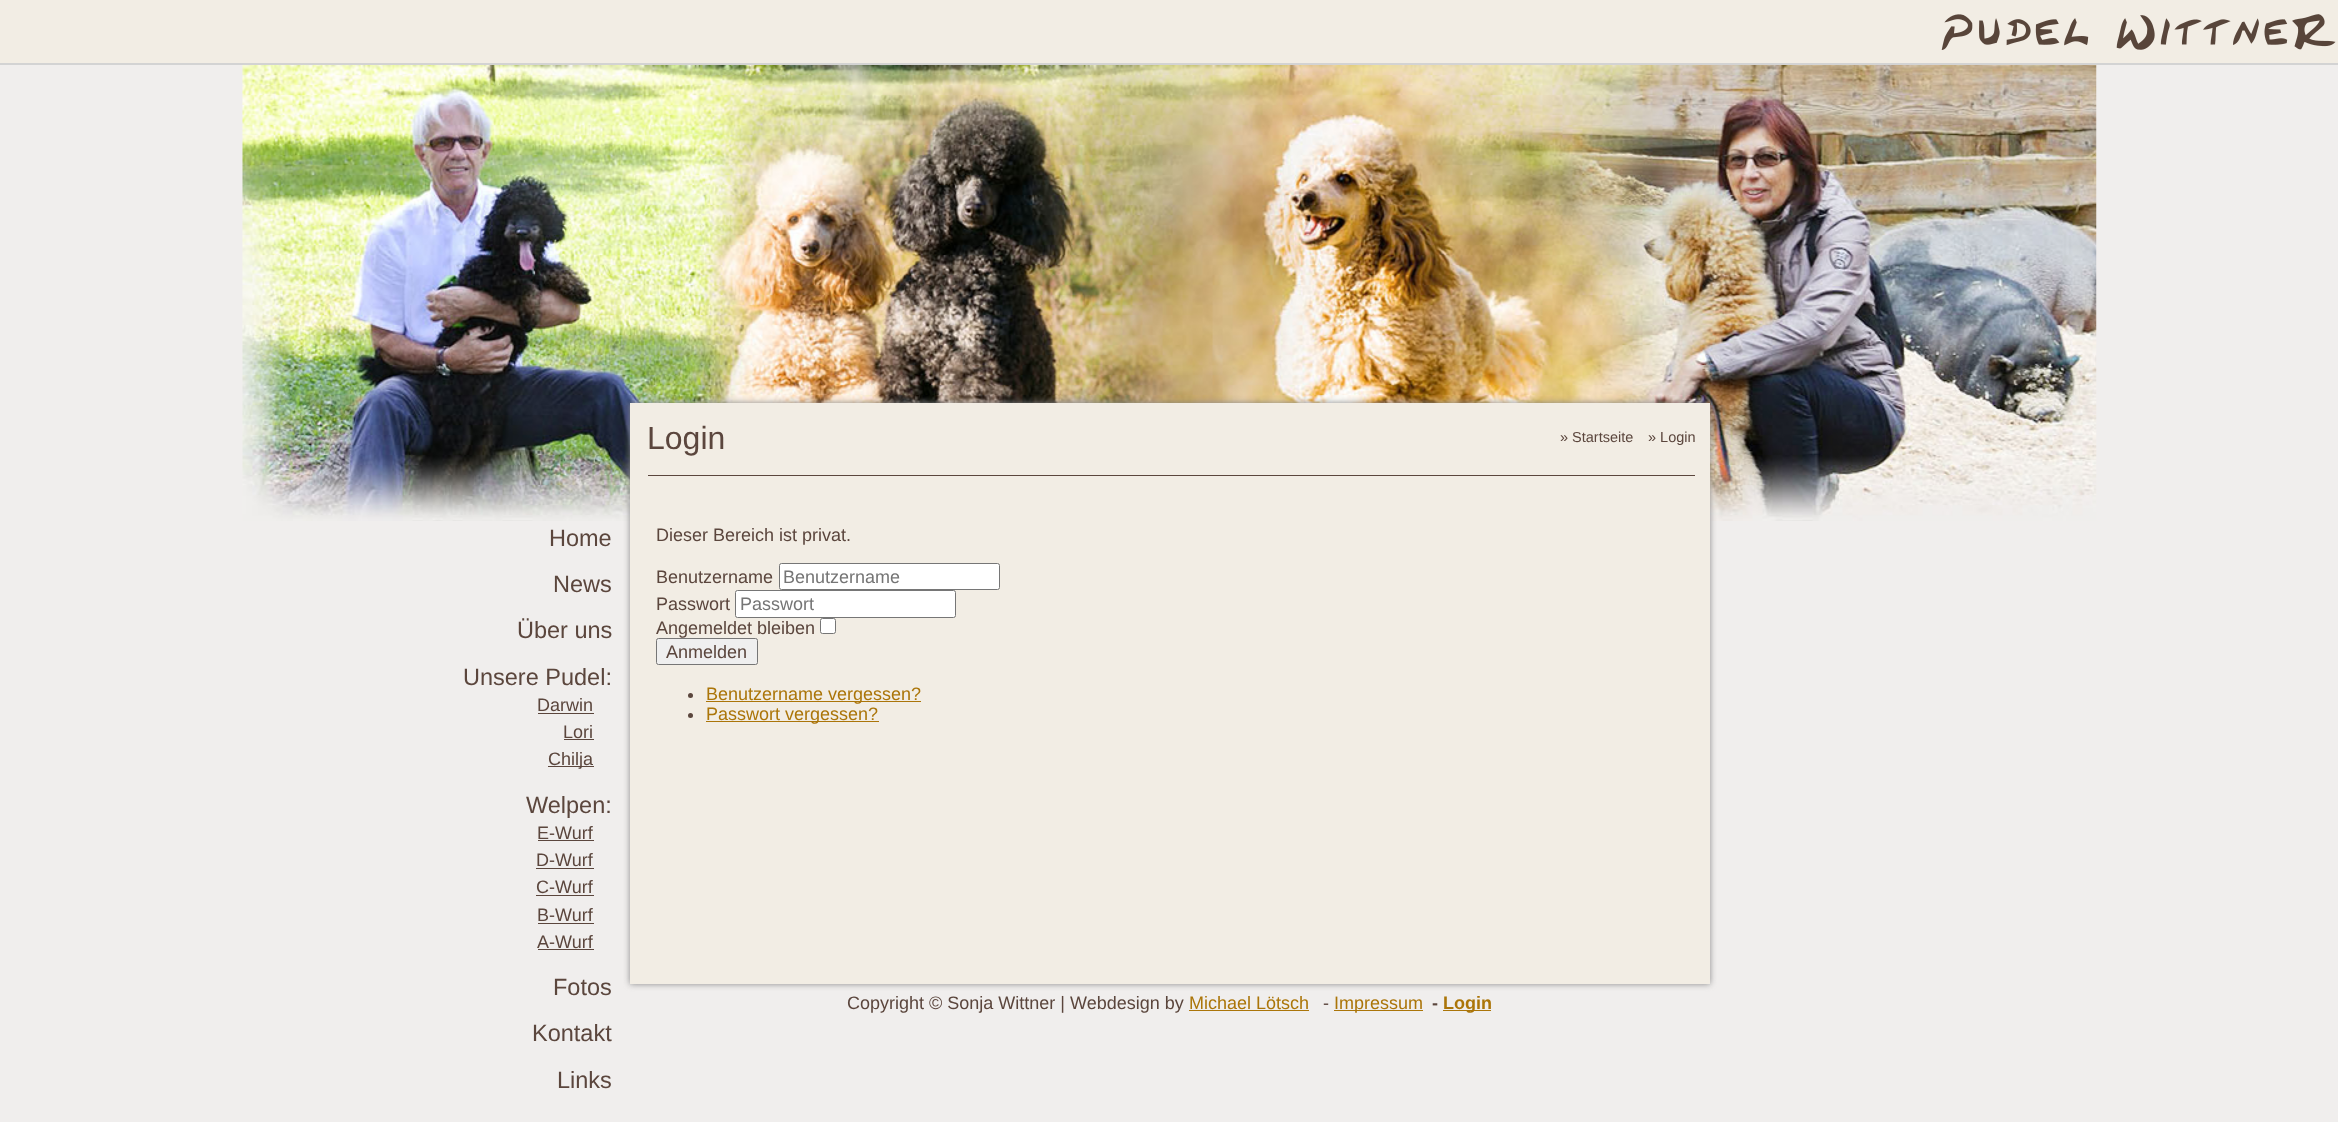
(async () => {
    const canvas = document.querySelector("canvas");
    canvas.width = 2338;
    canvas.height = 1122;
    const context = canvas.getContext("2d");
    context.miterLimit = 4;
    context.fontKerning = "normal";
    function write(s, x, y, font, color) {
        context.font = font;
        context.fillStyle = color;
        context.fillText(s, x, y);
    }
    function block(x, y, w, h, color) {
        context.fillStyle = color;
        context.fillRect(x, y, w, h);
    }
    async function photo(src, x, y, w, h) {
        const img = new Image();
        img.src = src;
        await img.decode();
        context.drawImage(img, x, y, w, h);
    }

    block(0, 0, 2338, 1122, "rgb(240, 238, 237)");
    block(0, 0, 2338, 63, "rgb(242, 237, 228)");
    block(0, 63, 2338, 2, "rgb(211, 211, 211)");
    await photo("media/1.png", 1941, 14, 395, 36);
    await photo("media/2.png", 242, 65, 1855, 456);
    write("Home", 549, 546, "23.5px Liberation Sans", "rgb(91, 70, 61)");
    write("News", 553, 592, "23.5px Liberation Sans", "rgb(91, 70, 61)");
    write("Über uns", 517, 638, "23.5px Liberation Sans", "rgb(91, 70, 61)");
    write("Unsere Pudel:", 463, 685, "23.5px Liberation Sans", "rgb(91, 70, 61)");
    write("Darwin", 537, 711, "18px Liberation Sans", "rgb(91, 70, 61)");
    block(538, 713, 56, 1, "rgb(91, 70, 61)");
    write("Lori", 563, 738, "18px Liberation Sans", "rgb(91, 70, 61)");
    block(564, 739, 30, 1, "rgb(91, 70, 61)");
    block(548, 766, 46, 1, "rgb(91, 70, 61)");
    write("Chilja", 548, 765, "18px Liberation Sans", "rgb(91, 70, 61)");
    write("Welpen:", 526, 813, "23.5px Liberation Sans", "rgb(91, 70, 61)");
    write("E-Wurf", 537, 839, "18px Liberation Sans", "rgb(91, 70, 61)");
    block(538, 840, 56, 1, "rgb(91, 70, 61)");
    write("D-Wurf", 536, 866, "18px Liberation Sans", "rgb(91, 70, 61)");
    block(536, 868, 58, 1, "rgb(91, 70, 61)");
    write("C-Wurf", 536, 893, "18px Liberation Sans", "rgb(91, 70, 61)");
    block(536, 895, 58, 1, "rgb(91, 70, 61)");
    write("B-Wurf", 537, 921, "18px Liberation Sans", "rgb(91, 70, 61)");
    block(538, 923, 56, 1, "rgb(91, 70, 61)");
    write("A-Wurf", 537, 948, "18px Liberation Sans", "rgb(91, 70, 61)");
    block(538, 949, 56, 1, "rgb(91, 70, 61)");
    write("Fotos", 553, 995, "23.5px Liberation Sans", "rgb(91, 70, 61)");
    write("Kontakt", 532, 1041, "23.5px Liberation Sans", "rgb(91, 70, 61)");
    write("Links", 557, 1088, "23.5px Liberation Sans", "rgb(91, 70, 61)");
    context.fillStyle = "rgb(136, 136, 136)";
    context.filter = "blur(3px)";
    context.beginPath();
    context.rect(630, 403, 1080, 581);
    context.fill();
    context.filter = "none";
    block(630, 403, 1080, 581, "rgb(242, 237, 228)");
    block(648, 475, 1047, 1, "rgb(91, 70, 61)");
    write("Login", 647, 449, "32px Liberation Sans", "rgb(91, 70, 61)");
    write("» Startseite", 1560, 442, "14.5px Liberation Sans", "rgb(91, 70, 61)");
    write("» Login", 1648, 442, "14.5px Liberation Sans", "rgb(91, 70, 61)");
    write("Dieser Bereich ist privat.", 656, 541, "18px Liberation Sans", "rgb(91, 70, 61)");
    write("Benutzername", 656, 583, "18px Liberation Sans", "rgb(91, 70, 61)");
    context.fillStyle = "rgb(255, 255, 255)";
    context.beginPath();
    context.roundRect(779.5, 563.5, 220, 26, 2);
    context.fill();
    context.strokeStyle = "rgb(118, 118, 118)";
    context.stroke();
    write("Benutzername", 783, 583, "18px Liberation Sans", "rgb(117, 117, 117)");
    write("Passwort", 656, 610, "18px Liberation Sans", "rgb(91, 70, 61)");
    context.fillStyle = "rgb(255, 255, 255)";
    context.beginPath();
    context.roundRect(735.5, 590.5, 220, 27, 2);
    context.fill();
    context.stroke();
    write("Passwort", 740, 610, "18px Liberation Sans", "rgb(117, 117, 117)");
    write("Angemeldet bleiben", 656, 634, "18px Liberation Sans", "rgb(91, 70, 61)");
    context.fillStyle = "rgb(255, 255, 255)";
    context.beginPath();
    context.roundRect(820.5, 618.5, 15, 15, 2);
    context.fill();
    context.stroke();
    context.fillStyle = "rgb(239, 239, 239)";
    context.beginPath();
    context.roundRect(656.5, 638.5, 101, 26, 2);
    context.fill();
    context.stroke();
    write("Anmelden", 666, 658, "18px Liberation Sans", "rgb(91, 70, 61)");
    context.beginPath();
    context.arc(690.5, 695.5, 2.5, 0, Math.PI * 2);
    context.fill();
    block(706, 701, 215, 1, "rgb(171, 117, 9)");
    write("Benutzername vergessen?", 706, 700, "18px Liberation Sans", "rgb(171, 117, 9)");
    context.fillStyle = "rgb(91, 70, 61)";
    context.beginPath();
    context.arc(690.5, 715.5, 2.5, 0, Math.PI * 2);
    context.fill();
    block(706, 721, 173, 1, "rgb(171, 117, 9)");
    write("Passwort vergessen?", 706, 720, "18px Liberation Sans", "rgb(171, 117, 9)");
    write("Copyright © Sonja Wittner | Webdesign by", 847, 1009, "18px Liberation Sans", "rgb(91, 70, 61)");
    write("Michael Lötsch", 1189, 1009, "18px Liberation Sans", "rgb(171, 117, 9)");
    block(1189, 1010, 120, 1, "rgb(171, 117, 9)");
    write("-", 1323, 1009, "18px Liberation Sans", "rgb(91, 70, 61)");
    block(1334, 1010, 89, 1, "rgb(171, 117, 9)");
    write("Impressum", 1334, 1009, "18px Liberation Sans", "rgb(171, 117, 9)");
    write("-", 1432, 1009, "bold 18px Liberation Sans", "rgb(91, 70, 61)");
    block(1443, 1010, 48, 1, "rgb(171, 117, 9)");
    write("Login", 1443, 1009, "bold 18px Liberation Sans", "rgb(171, 117, 9)");
})();
